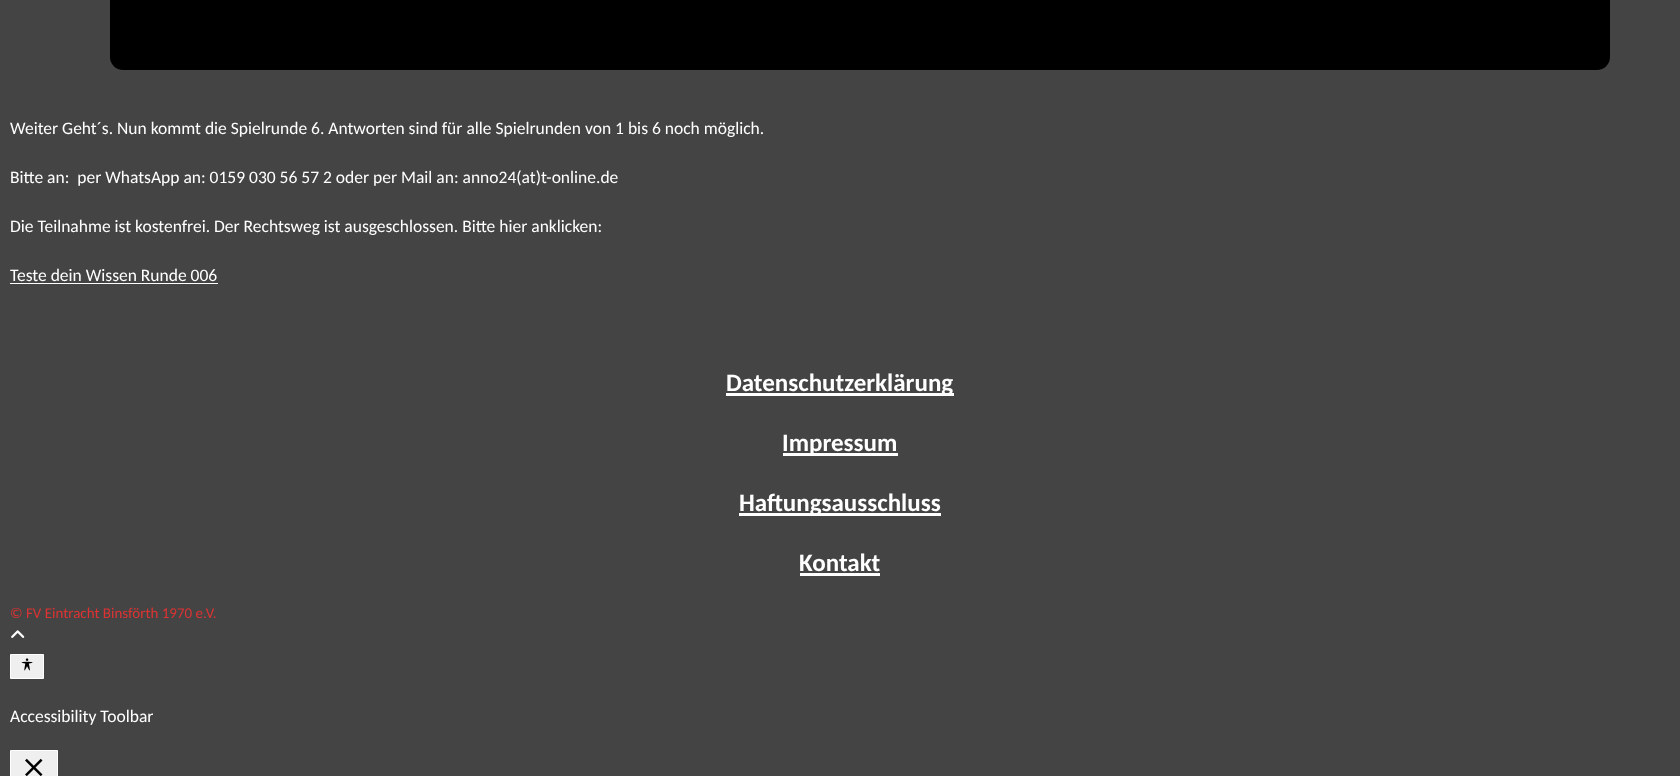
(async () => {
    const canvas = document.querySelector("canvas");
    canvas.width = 1680;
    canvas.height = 776;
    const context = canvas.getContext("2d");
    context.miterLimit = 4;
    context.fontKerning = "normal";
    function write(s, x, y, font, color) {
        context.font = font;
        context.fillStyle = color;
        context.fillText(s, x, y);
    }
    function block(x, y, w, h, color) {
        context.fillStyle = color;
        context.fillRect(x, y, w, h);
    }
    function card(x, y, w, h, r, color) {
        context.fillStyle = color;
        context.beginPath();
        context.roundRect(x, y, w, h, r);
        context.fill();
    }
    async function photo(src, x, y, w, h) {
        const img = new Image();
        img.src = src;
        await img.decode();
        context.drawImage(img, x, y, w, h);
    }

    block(0, 0, 1680, 776, "rgb(68, 68, 68)");
    card(110, -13, 1500, 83, 13, "rgb(0, 0, 0)");
    write("Weiter Geht´s. Nun kommt die Spielrunde 6. Antworten sind für alle Spielrunden von 1 bis 6 noch möglich.", 10, 134, "17.5px Carlito", "rgb(255, 255, 255)");
    write("Bitte an:  per WhatsApp an: 0159 030 56 57 2 oder per Mail an: anno24(at)t-online.de", 10, 183, "17.5px Carlito", "rgb(255, 255, 255)");
    write("Die Teilnahme ist kostenfrei. Der Rechtsweg ist ausgeschlossen. Bitte hier anklicken:", 10, 232, "17.5px Carlito", "rgb(255, 255, 255)");
    write("Teste dein Wissen Runde 006", 10, 281, "17.5px Carlito", "rgb(255, 255, 255)");
    block(10, 283, 208, 1, "rgb(255, 255, 255)");
    block(726, 393, 228, 3, "rgb(255, 255, 255)");
    write("Datenschutzerklärung", 726, 391, "bold 25px Carlito", "rgb(255, 255, 255)");
    block(783, 453, 115, 3, "rgb(255, 255, 255)");
    write("Impressum", 782, 451, "bold 25px Carlito", "rgb(255, 255, 255)");
    block(739, 513, 202, 3, "rgb(255, 255, 255)");
    write("Haftungsausschluss", 739, 511, "bold 25px Carlito", "rgb(255, 255, 255)");
    write("Kontakt", 799, 571, "bold 25px Carlito", "rgb(255, 255, 255)");
    block(800, 573, 80, 3, "rgb(255, 255, 255)");
    write("© FV Eintracht Binsförth 1970 e.V.", 10, 618, "15px Carlito", "rgb(221, 51, 51)");
    await photo("media/1.png", 11, 630, 14, 8);
    context.fillStyle = "rgb(239, 239, 239)";
    context.beginPath();
    context.rect(10.5, 654.5, 33, 24);
    context.fill();
    context.strokeStyle = "rgb(255, 255, 255)";
    context.stroke();
    await photo("media/2.png", 21, 658, 12, 13);
    write("Accessibility Toolbar", 10, 722, "17.5px Carlito", "rgb(255, 255, 255)");
    context.fillStyle = "rgb(239, 239, 239)";
    context.beginPath();
    context.rect(10.5, 750.5, 47, 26);
    context.fill();
    context.stroke();
    await photo("media/3.png", 25, 758, 18, 18);
})();
